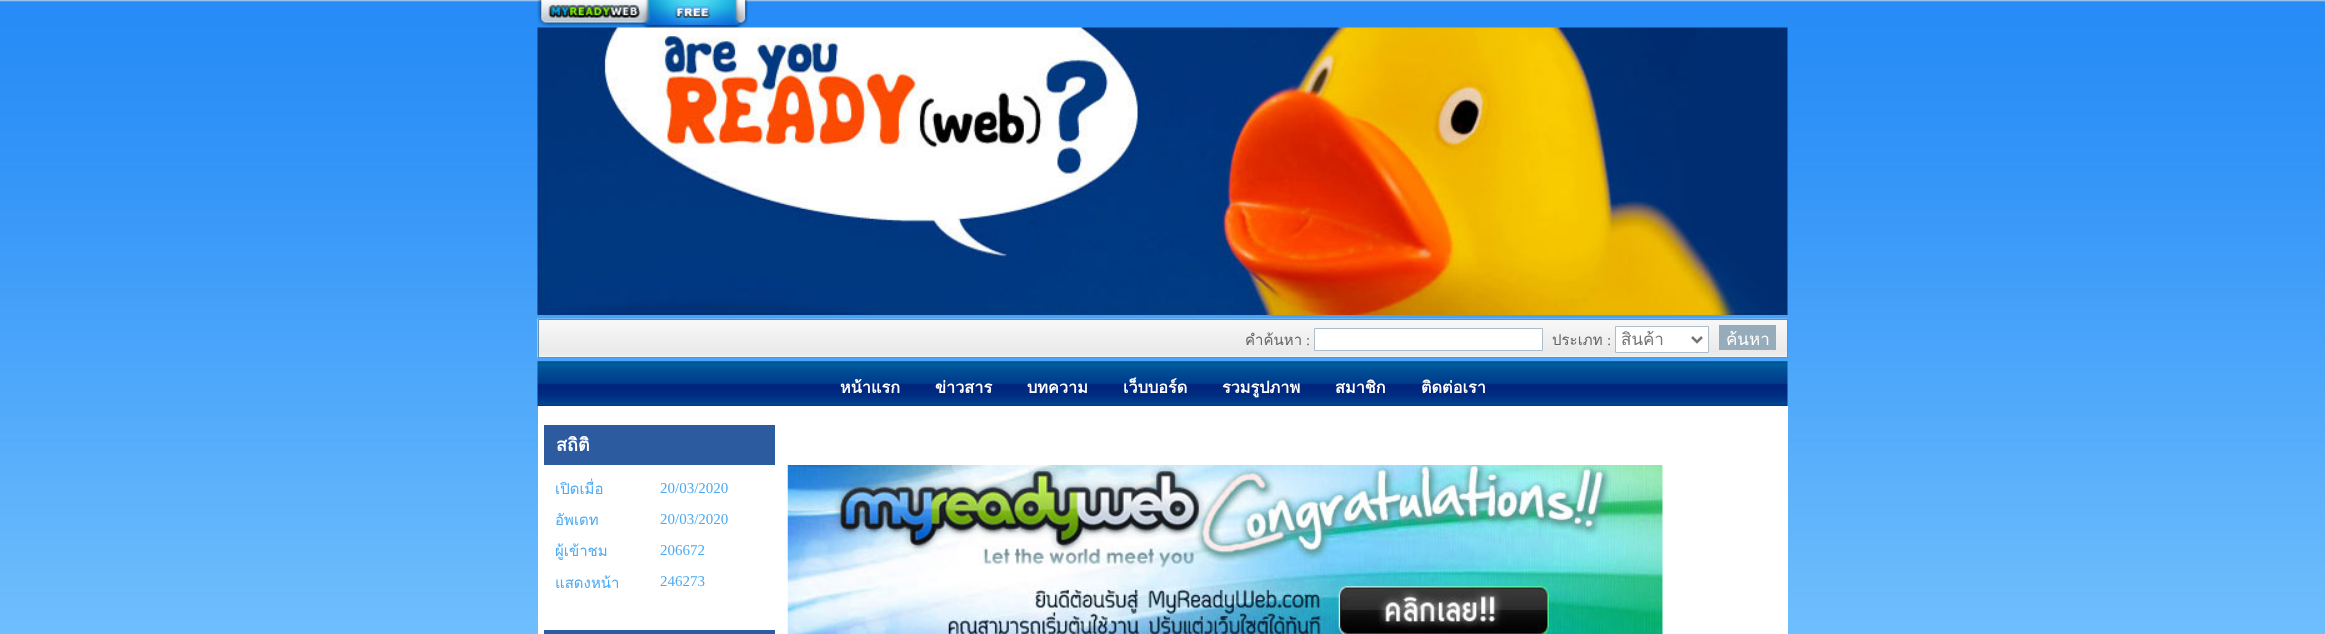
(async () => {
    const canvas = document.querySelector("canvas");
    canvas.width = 2325;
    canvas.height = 634;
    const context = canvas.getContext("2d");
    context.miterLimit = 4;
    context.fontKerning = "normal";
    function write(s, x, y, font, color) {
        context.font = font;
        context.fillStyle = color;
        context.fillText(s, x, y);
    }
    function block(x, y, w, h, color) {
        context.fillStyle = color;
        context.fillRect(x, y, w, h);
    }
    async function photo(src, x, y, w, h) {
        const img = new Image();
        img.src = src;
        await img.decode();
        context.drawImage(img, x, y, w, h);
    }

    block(0, 0, 2325, 634, "rgb(255, 255, 255)");
    await photo("media/1.png", 0, 0, 2325, 634);
    await photo("media/3.png", 537, 27, 1251, 288);
    await photo("media/2.png", 537, 0, 211, 28);
    await photo("media/4.png", 537, 318, 1251, 40);
    context.strokeStyle = "rgb(100, 145, 179)";
    context.strokeRect(538.5, 319.5, 1249, 38);
    write("คำค้นหา", 1245, 345, "15px Loma", "rgb(102, 102, 102)");
    write(":", 1306, 345, "15px Liberation Serif", "rgb(102, 102, 102)");
    context.fillStyle = "rgb(255, 255, 255)";
    context.beginPath();
    context.rect(1314.5, 328.5, 228, 22);
    context.fill();
    context.strokeStyle = "rgb(173, 190, 203)";
    context.stroke();
    write("ประเภท", 1552, 345, "15px Loma", "rgb(102, 102, 102)");
    write(":", 1607, 345, "15px Liberation Serif", "rgb(102, 102, 102)");
    context.fillStyle = "rgb(255, 255, 255)";
    context.beginPath();
    context.rect(1615.5, 326.5, 93, 26);
    context.fill();
    context.stroke();
    context.beginPath();
    context.moveTo(1692, 337);
    context.lineTo(1697, 342);
    context.lineTo(1702, 337);
    context.strokeStyle = "rgb(117, 117, 117)";
    context.lineWidth = 2.5;
    context.stroke();
    context.save();
    context.beginPath();
    context.rect(1621, 329, 67, 21);
    context.clip();
    write("สินค้า", 1621, 345, "17px Loma", "rgb(117, 117, 117)");
    context.restore();
    block(1719, 325, 57, 25, "rgb(151, 172, 187)");
    write("ค้นหา", 1726, 345, "17px Loma", "rgb(255, 255, 255)");
    await photo("media/5.png", 537, 361, 1251, 46);
    write("หน้าแรก", 840, 393, "bold 16.25px Loma", "rgb(255, 255, 255)");
    write("ข่าวสาร", 935, 393, "bold 16.25px Loma", "rgb(255, 255, 255)");
    write("บทความ", 1027, 393, "bold 16.25px Loma", "rgb(255, 255, 255)");
    write("เว็บบอร์ด", 1123, 393, "bold 16.25px Loma", "rgb(255, 255, 255)");
    write("รวมรูปภาพ", 1222, 393, "bold 16.25px Loma", "rgb(255, 255, 255)");
    write("สมาชิก", 1335, 393, "bold 16.25px Loma", "rgb(255, 255, 255)");
    write("ติดต่อเรา", 1421, 393, "bold 16.25px Loma", "rgb(255, 255, 255)");
    block(538, 406, 1250, 228, "rgb(255, 255, 255)");
    block(544, 425, 231, 40, "rgb(44, 91, 160)");
    write("สถิติ", 556, 451, "bold 18px Loma", "rgb(255, 255, 255)");
    write("เปิดเมื่อ", 555, 494, "15px Loma", "rgb(77, 170, 242)");
    write("20/03/2020", 660, 493, "15px Liberation Serif", "rgb(77, 170, 242)");
    write("อัพเดท", 555, 525, "15px Loma", "rgb(77, 170, 242)");
    write("20/03/2020", 660, 524, "15px Liberation Serif", "rgb(77, 170, 242)");
    write("ผู้เข้าชม", 555, 556, "15px Loma", "rgb(77, 170, 242)");
    write("206672", 660, 555, "15px Liberation Serif", "rgb(77, 170, 242)");
    write("แสดงหน้า", 555, 588, "15px Loma", "rgb(77, 170, 242)");
    write("246273", 660, 586, "15px Liberation Serif", "rgb(77, 170, 242)");
    block(544, 630, 231, 4, "rgb(44, 91, 160)");
    await photo("media/6.png", 787, 465, 876, 169);
})();
